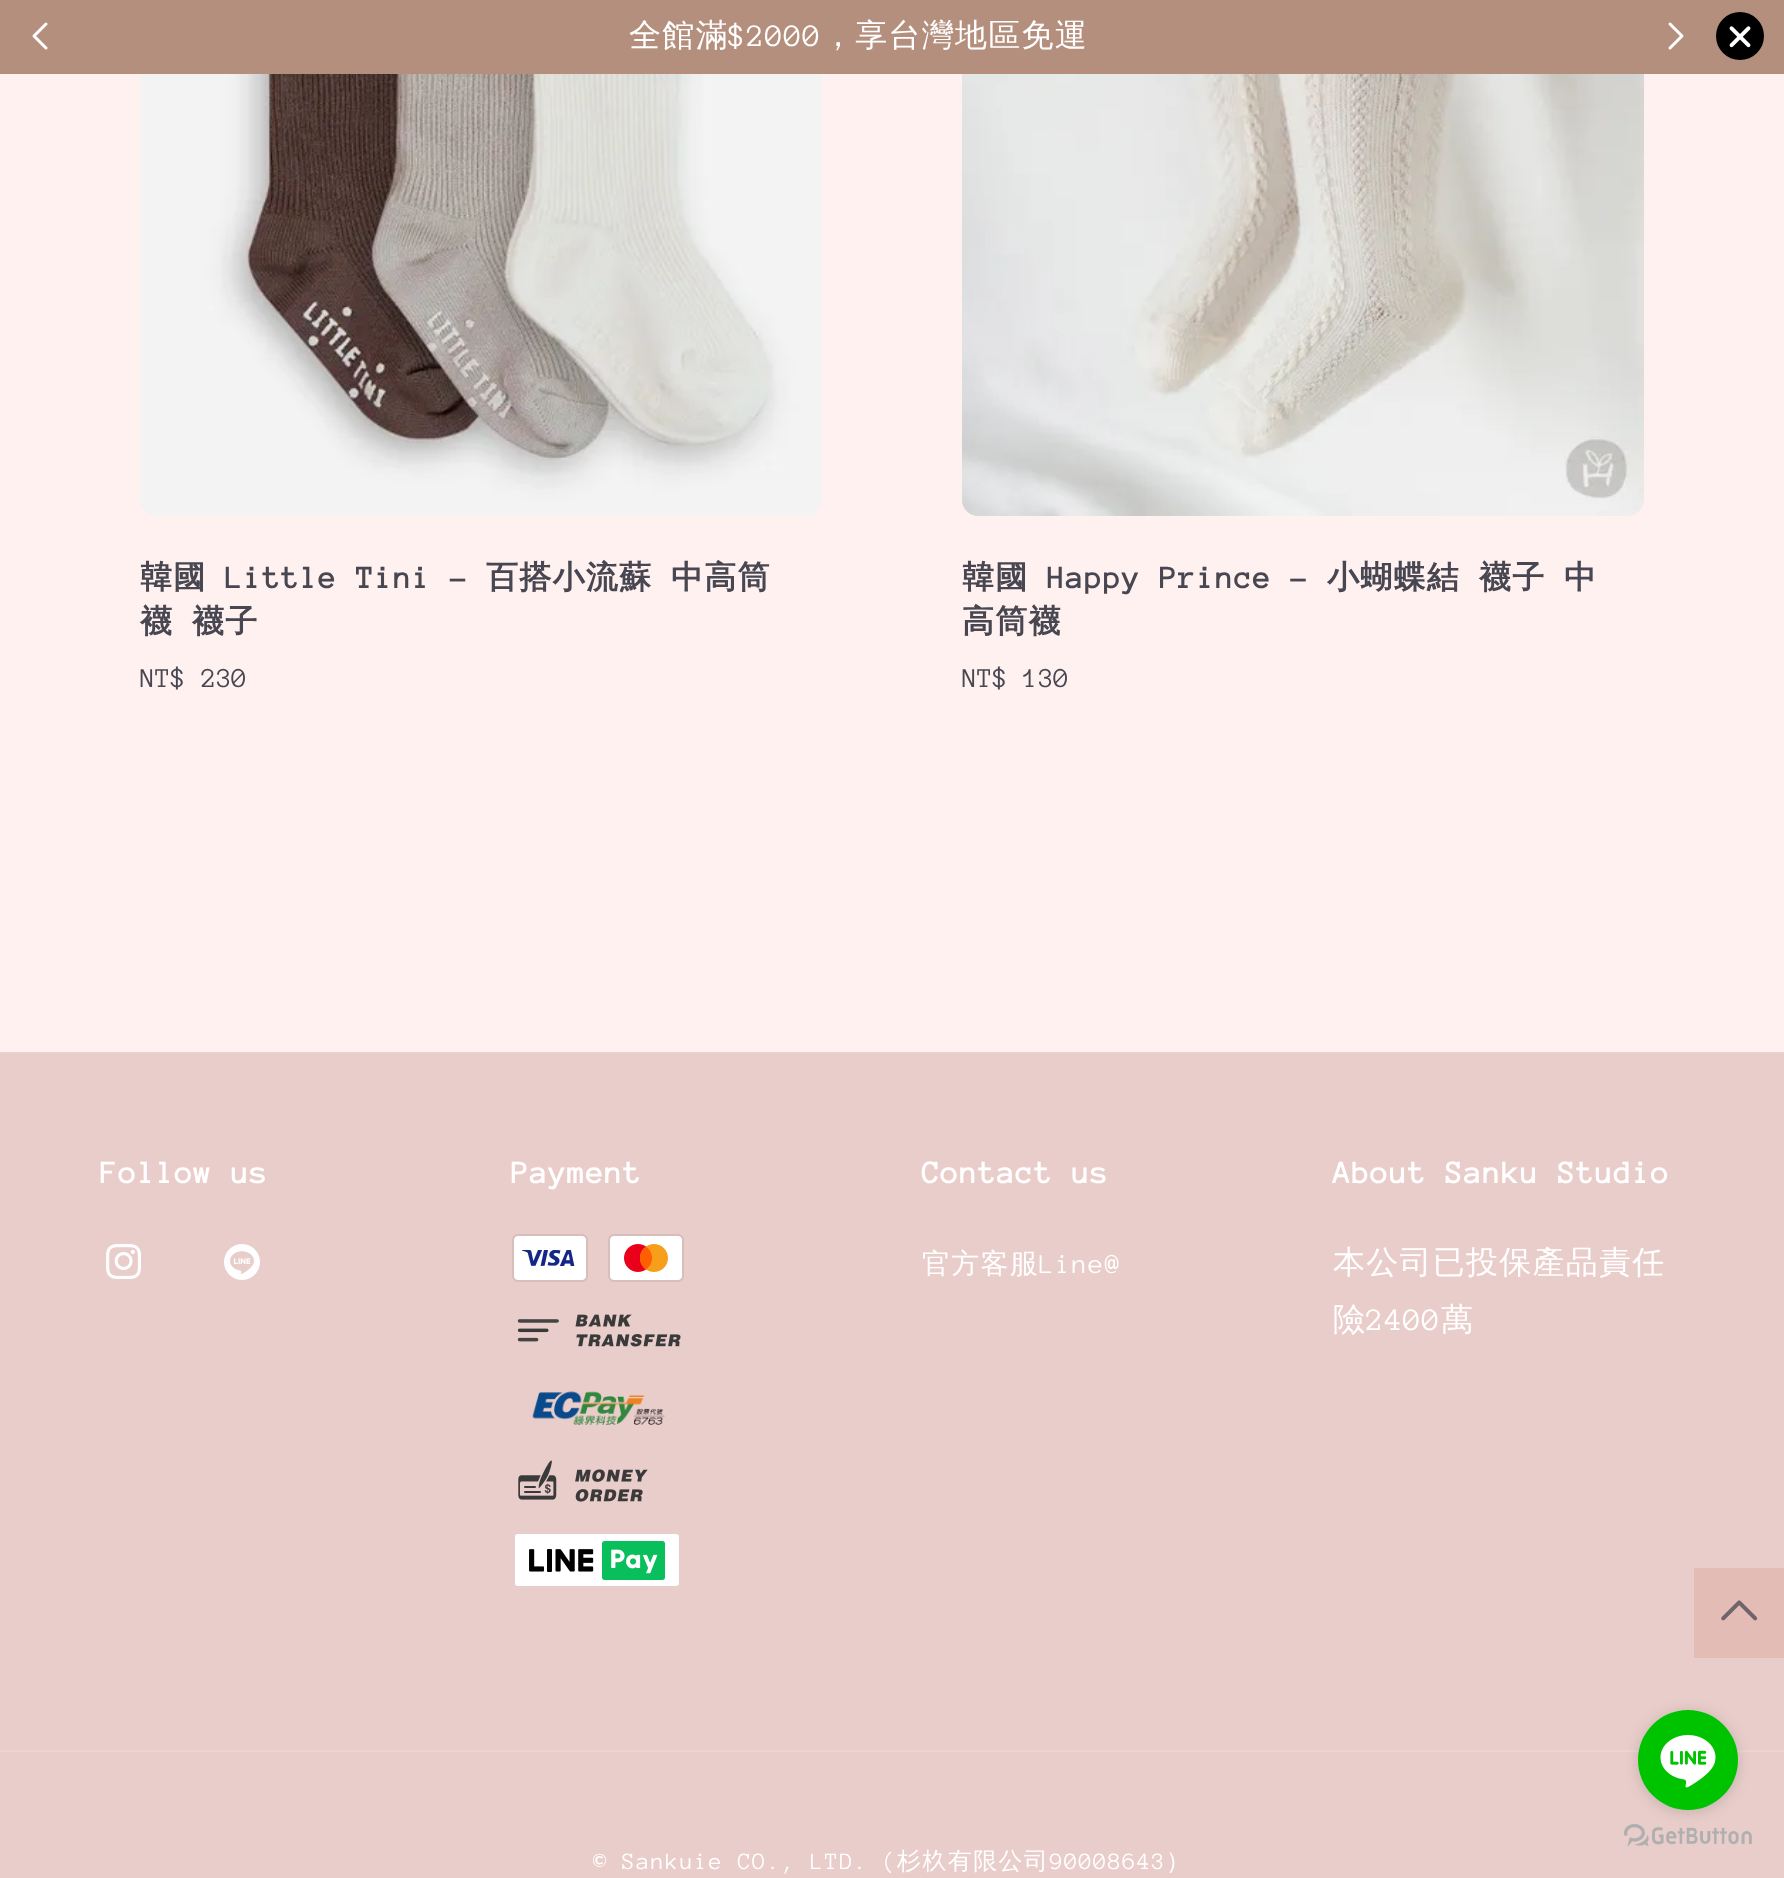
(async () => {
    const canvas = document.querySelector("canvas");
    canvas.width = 1784;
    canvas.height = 1878;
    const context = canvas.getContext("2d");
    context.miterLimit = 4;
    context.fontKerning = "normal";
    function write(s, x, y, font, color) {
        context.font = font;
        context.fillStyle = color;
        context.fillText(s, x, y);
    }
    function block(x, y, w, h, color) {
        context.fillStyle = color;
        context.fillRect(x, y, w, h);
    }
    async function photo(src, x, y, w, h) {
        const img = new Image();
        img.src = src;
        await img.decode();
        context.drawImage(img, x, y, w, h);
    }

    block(0, 0, 1784, 1878, "rgb(255, 241, 240)");
    block(0, 0, 1784, 74, "rgb(180, 143, 126)");
    context.beginPath();
    context.moveTo(46, 24);
    context.lineTo(34, 36);
    context.lineTo(46, 48);
    context.strokeStyle = "rgb(255, 255, 255)";
    context.lineWidth = 3;
    context.lineCap = "round";
    context.lineJoin = "round";
    context.stroke();
    context.letterSpacing = "1.25px";
    write("全館滿", 629, 46, "500 32px WenQuanYi Zen Hei", "rgb(255, 255, 255)");
    write("$2000", 728, 46, "32px Anonymous Pro", "rgb(255, 255, 255)");
    write("，享台灣地區免運", 822, 46, "500 32px WenQuanYi Zen Hei", "rgb(255, 255, 255)");
    context.beginPath();
    context.moveTo(1670, 24);
    context.lineTo(1682, 36);
    context.lineTo(1670, 48);
    context.stroke();
    context.fillStyle = "rgb(0, 0, 0)";
    context.beginPath();
    context.arc(1740, 36, 24, 0, Math.PI * 2);
    context.fill();
    context.fillStyle = "rgb(255, 255, 255)";
    context.beginPath();
    context.moveTo(1750, 27);
    context.bezierCurveTo(1750.5, 27.5, 1750.5, 29, 1750, 29.5);
    context.lineTo(1733, 46.5);
    context.bezierCurveTo(1732, 47.5, 1731, 47.5, 1730, 46.5);
    context.bezierCurveTo(1729.5, 46, 1729.5, 44.5, 1730, 44);
    context.lineTo(1747, 27);
    context.bezierCurveTo(1748, 26, 1749, 26, 1750, 27);
    context.closePath();
    context.fill();
    context.beginPath();
    context.moveTo(1730, 27);
    context.bezierCurveTo(1731, 26, 1732, 26, 1733, 27);
    context.lineTo(1750, 44);
    context.bezierCurveTo(1750.5, 44.5, 1750.5, 46, 1750, 46.5);
    context.bezierCurveTo(1749, 47.5, 1748, 47.5, 1747, 46.5);
    context.lineTo(1730, 29.5);
    context.bezierCurveTo(1729.5, 29, 1729.5, 27.5, 1730, 27);
    context.closePath();
    context.fill();
    await photo("media/1.png", 140, 74, 682, 442);
    write("韓國", 140, 588, "bold 32px WenQuanYi Zen Hei", "rgb(72, 71, 81)");
    write("Little Tini -", 225, 588, "bold 32px Anonymous Pro", "rgb(72, 71, 81)");
    context.wordSpacing = "8px";
    write("百搭小流蘇 中高筒", 486, 588, "bold 32px WenQuanYi Zen Hei", "rgb(72, 71, 81)");
    write("襪 襪子", 140, 632, "bold 32px WenQuanYi Zen Hei", "rgb(72, 71, 81)");
    context.letterSpacing = "0px";
    context.wordSpacing = "0px";
    write("NT$ 230", 140, 687, "28px Anonymous Pro", "rgb(72, 71, 81)");
    await photo("media/2.png", 962, 74, 682, 442);
    context.letterSpacing = "1.25px";
    write("韓國", 962, 588, "bold 32px WenQuanYi Zen Hei", "rgb(72, 71, 81)");
    write("Happy Prince -", 1047, 588, "bold 32px Anonymous Pro", "rgb(72, 71, 81)");
    write("小蝴蝶結", 1327, 588, "bold 32px WenQuanYi Zen Hei", "rgb(72, 71, 81)");
    write("襪子", 1479, 588, "bold 32px WenQuanYi Zen Hei", "rgb(72, 71, 81)");
    write("中", 1564, 588, "bold 32px WenQuanYi Zen Hei", "rgb(72, 71, 81)");
    write("高筒襪", 962, 632, "bold 32px WenQuanYi Zen Hei", "rgb(72, 71, 81)");
    context.letterSpacing = "0px";
    write("NT$ 130", 962, 687, "28px Anonymous Pro", "rgb(72, 71, 81)");
    block(0, 1054, 1784, 824, "rgb(233, 205, 202)");
    block(0, 1052, 1784, 2, "rgb(235, 209, 206)");
    context.letterSpacing = "1.25px";
    write("Follow us", 100, 1183, "bold 32px Anonymous Pro", "rgb(255, 255, 255)");
    await photo("media/3.png", 106, 1244, 35, 35);
    await photo("media/4.png", 224, 1244, 36, 36);
    write("Payment", 511, 1183, "bold 32px Anonymous Pro", "rgb(255, 255, 255)");
    await photo("media/5.png", 512, 1234, 76, 48);
    await photo("media/6.png", 608, 1234, 76, 48);
    await photo("media/7.png", 517, 1314, 164, 33);
    await photo("media/8.png", 532, 1391, 133, 34);
    await photo("media/9.png", 518, 1460, 130, 42);
    await photo("media/10.png", 515, 1534, 164, 52);
    write("Contact us", 922, 1183, "bold 32px Anonymous Pro", "rgb(255, 255, 255)");
    write("官方客服", 922, 1273, "500 28px WenQuanYi Zen Hei", "rgb(255, 255, 255)");
    write("Line@", 1039, 1273, "28px Anonymous Pro", "rgb(255, 255, 255)");
    write("About Sanku Studio", 1333, 1183, "bold 32px Anonymous Pro", "rgb(255, 255, 255)");
    write("本公司已投保產品責任", 1333, 1273, "500 32px WenQuanYi Zen Hei", "rgb(255, 255, 255)");
    write("險", 1333, 1330, "500 32px WenQuanYi Zen Hei", "rgb(255, 255, 255)");
    write("2400", 1366, 1330, "32px Anonymous Pro", "rgb(255, 255, 255)");
    write("萬", 1441, 1330, "500 32px WenQuanYi Zen Hei", "rgb(255, 255, 255)");
    block(0, 1750, 1784, 2, "rgb(236, 212, 210)");
    context.letterSpacing = "1.4px";
    write("© Sankuie CO., LTD. (", 593, 1869, "24px Anonymous Pro", "rgb(255, 255, 255)");
    write("杉杦有限公司", 897, 1869, "500 24px WenQuanYi Zen Hei", "rgb(255, 255, 255)");
    write("90008643", 1050, 1869, "24px Anonymous Pro", "rgb(255, 255, 255)");
    write("）", 1166, 1869, "500 24px WenQuanYi Zen Hei", "rgb(255, 255, 255)");
    block(1694, 1568, 90, 90, "rgb(227, 188, 181)");
    await photo("media/11.png", 1721, 1600, 37, 21);
    await photo("media/13.png", 1624, 1824, 128, 22);
    context.fillStyle = "rgba(136, 136, 136, 0.4)";
    context.filter = "blur(7px)";
    context.beginPath();
    context.roundRect(1638, 1712, 100, 100, 50);
    context.fill();
    context.filter = "none";
    context.fillStyle = "rgb(0, 195, 0)";
    context.beginPath();
    context.arc(1688, 1760, 50, 0, Math.PI * 2);
    context.fill();
    await photo("media/12.png", 1660, 1735, 56, 53);
})();
